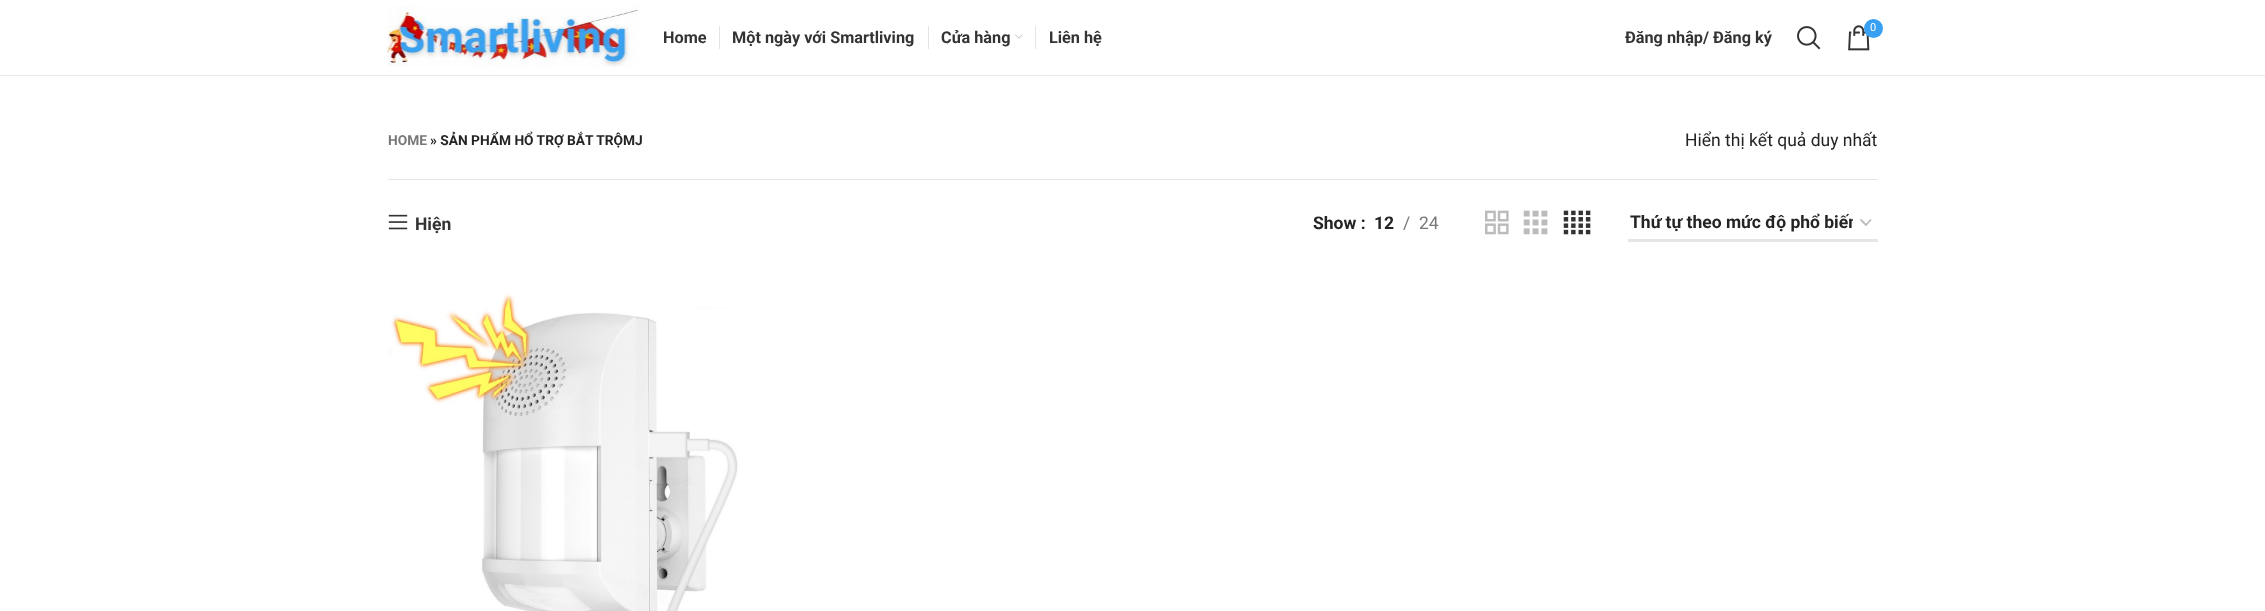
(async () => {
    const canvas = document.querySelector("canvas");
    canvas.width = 2265;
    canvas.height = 611;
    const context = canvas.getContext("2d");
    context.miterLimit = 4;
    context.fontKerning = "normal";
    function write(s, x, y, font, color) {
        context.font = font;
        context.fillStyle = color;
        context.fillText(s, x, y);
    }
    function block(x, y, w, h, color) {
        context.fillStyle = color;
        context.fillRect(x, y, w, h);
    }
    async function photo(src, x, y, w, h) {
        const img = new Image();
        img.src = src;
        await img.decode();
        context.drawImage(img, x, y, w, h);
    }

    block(0, 0, 2265, 611, "rgb(255, 255, 255)");
    block(0, 75, 2265, 1, "rgb(232, 232, 232)");
    await photo("media/1.png", 387, 6, 251, 61);
    write("Home", 663, 43, "bold 16.25px Roboto", "rgb(51, 51, 51)");
    block(719, 26, 1, 23, "rgb(228, 228, 228)");
    write("Một ngày với Smartliving", 732, 43, "bold 16.25px Roboto", "rgb(51, 51, 51)");
    block(928, 26, 1, 23, "rgb(228, 228, 228)");
    write("Cửa hàng", 941, 43, "bold 16.25px Roboto", "rgb(51, 51, 51)");
    await photo("media/2.png", 1015, 34, 8, 5);
    block(1035, 26, 1, 23, "rgb(228, 228, 228)");
    write("Liên hệ", 1049, 43, "bold 16.25px Roboto", "rgb(51, 51, 51)");
    write("Đăng nhập/ Đăng ký", 1625, 43, "bold 16.25px Roboto", "rgb(51, 51, 51)");
    await photo("media/3.png", 1797, 26, 24, 24);
    await photo("media/4.png", 1848, 25, 22, 26);
    context.fillStyle = "rgb(55, 160, 242)";
    context.beginPath();
    context.arc(1873.5, 28.5, 9.5, 0, Math.PI * 2);
    context.fill();
    write("0", 1870, 31, "11px Roboto", "rgb(255, 255, 255)");
    block(388, 179, 1490, 1, "rgb(228, 228, 228)");
    write("HOME", 388, 145, "bold 13.75px Roboto", "rgb(119, 119, 119)");
    write("» SẢN PHẨM HỔ TRỢ BẮT TRỘMJ", 430, 145, "bold 13.75px Roboto", "rgb(36, 36, 36)");
    write("Hiển thị kết quả duy nhất", 1685, 146, "17.5px Roboto", "rgb(36, 36, 36)");
    await photo("media/5.png", 388, 214, 20, 16);
    write("Hiện", 415, 230, "bold 17.5px Roboto", "rgb(51, 51, 51)");
    write("Show :", 1313, 229, "bold 17.5px Roboto", "rgb(36, 36, 36)");
    write("12", 1374, 229, "bold 17.5px Roboto", "rgb(36, 36, 36)");
    write("/", 1403, 229, "17.5px Roboto", "rgb(119, 119, 119)");
    write("24", 1419, 229, "17.5px Roboto", "rgb(119, 119, 119)");
    await photo("media/6.png", 1485, 210, 24, 25);
    await photo("media/7.png", 1523, 210, 25, 25);
    await photo("media/8.png", 1563, 210, 28, 25);
    context.beginPath();
    context.moveTo(1860.5, 219.5);
    context.lineTo(1866, 225);
    context.lineTo(1871, 219.5);
    context.strokeStyle = "rgb(187, 187, 187)";
    context.lineWidth = 1.8;
    context.stroke();
    block(1628, 239, 250, 3, "rgb(230, 230, 230)");
    context.save();
    context.beginPath();
    context.rect(1630, 211, 223, 22);
    context.clip();
    write("Thứ tự theo mức độ phổ biến", 1630, 228, "bold 17.5px Roboto", "rgb(36, 36, 36)");
    context.restore();
    await photo("media/9.png", 388, 293, 350, 318);
})();
